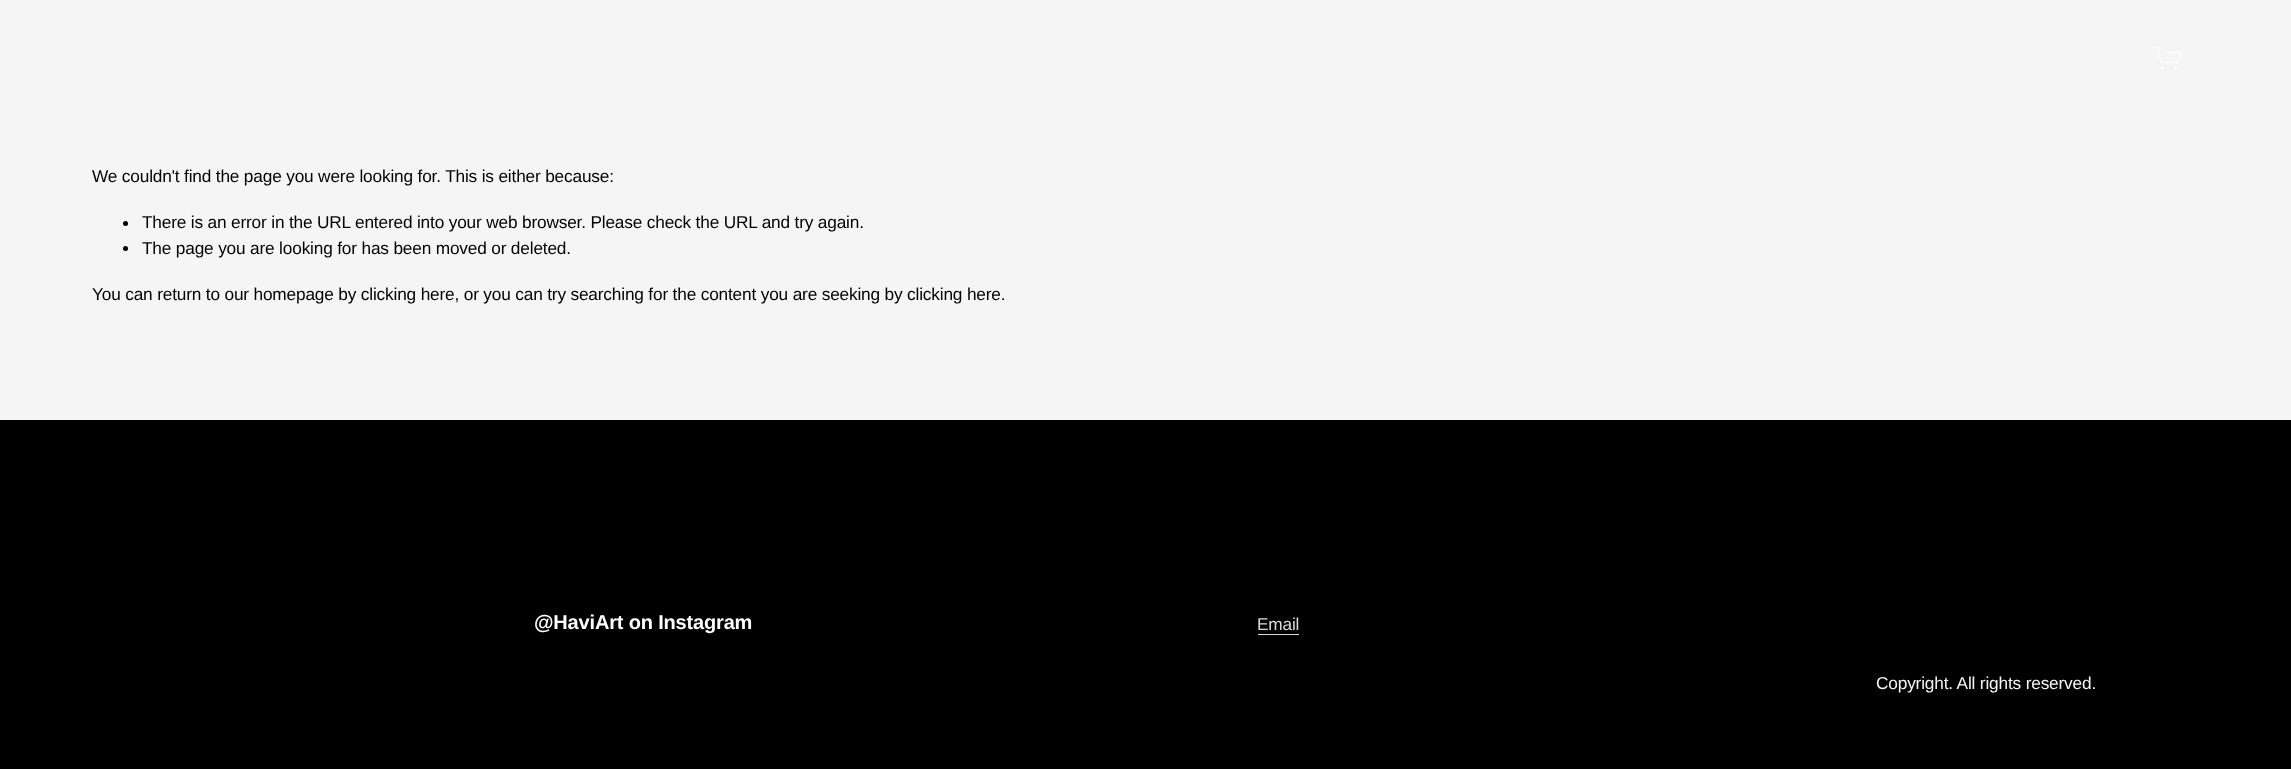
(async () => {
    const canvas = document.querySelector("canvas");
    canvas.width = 2291;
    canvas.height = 769;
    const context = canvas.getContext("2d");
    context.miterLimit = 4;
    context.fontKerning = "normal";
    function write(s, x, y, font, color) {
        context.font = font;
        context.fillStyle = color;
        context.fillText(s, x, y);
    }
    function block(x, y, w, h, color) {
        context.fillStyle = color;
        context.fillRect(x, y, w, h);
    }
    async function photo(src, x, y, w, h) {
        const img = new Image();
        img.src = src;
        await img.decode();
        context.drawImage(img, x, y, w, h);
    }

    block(0, 0, 2291, 769, "rgb(245, 245, 245)");
    await photo("media/1.png", 2153, 47, 29, 22);
    context.letterSpacing = "-0.17px";
    write("We couldn't find the page you were looking for. This is either because:", 92, 182, "17.25px Liberation Sans", "rgb(0, 0, 0)");
    context.beginPath();
    context.arc(125.5, 223.5, 2.5, 0, Math.PI * 2);
    context.fill();
    write("There is an error in the URL entered into your web browser. Please check the URL and try again.", 142, 228, "17.25px Liberation Sans", "rgb(0, 0, 0)");
    context.beginPath();
    context.arc(125.5, 248.5, 2.5, 0, Math.PI * 2);
    context.fill();
    write("The page you are looking for has been moved or deleted.", 142, 254, "17.25px Liberation Sans", "rgb(0, 0, 0)");
    write("You can return to our homepage by clicking here, or you can try searching for the content you are seeking by clicking here.", 92, 300, "17.25px Liberation Sans", "rgb(0, 0, 0)");
    block(0, 420, 2291, 349, "rgb(0, 0, 0)");
    write("@HaviArt on Instagram", 534, 629, "bold 20px Liberation Sans", "rgb(255, 255, 255)");
    write("Email", 1257, 630, "17.25px Liberation Sans", "rgb(217, 217, 217)");
    block(1258, 634, 41, 1, "rgb(217, 217, 217)");
    write("Copyright. All rights reserved.", 1876, 689, "17.25px Liberation Sans", "rgb(245, 245, 245)");
})();
